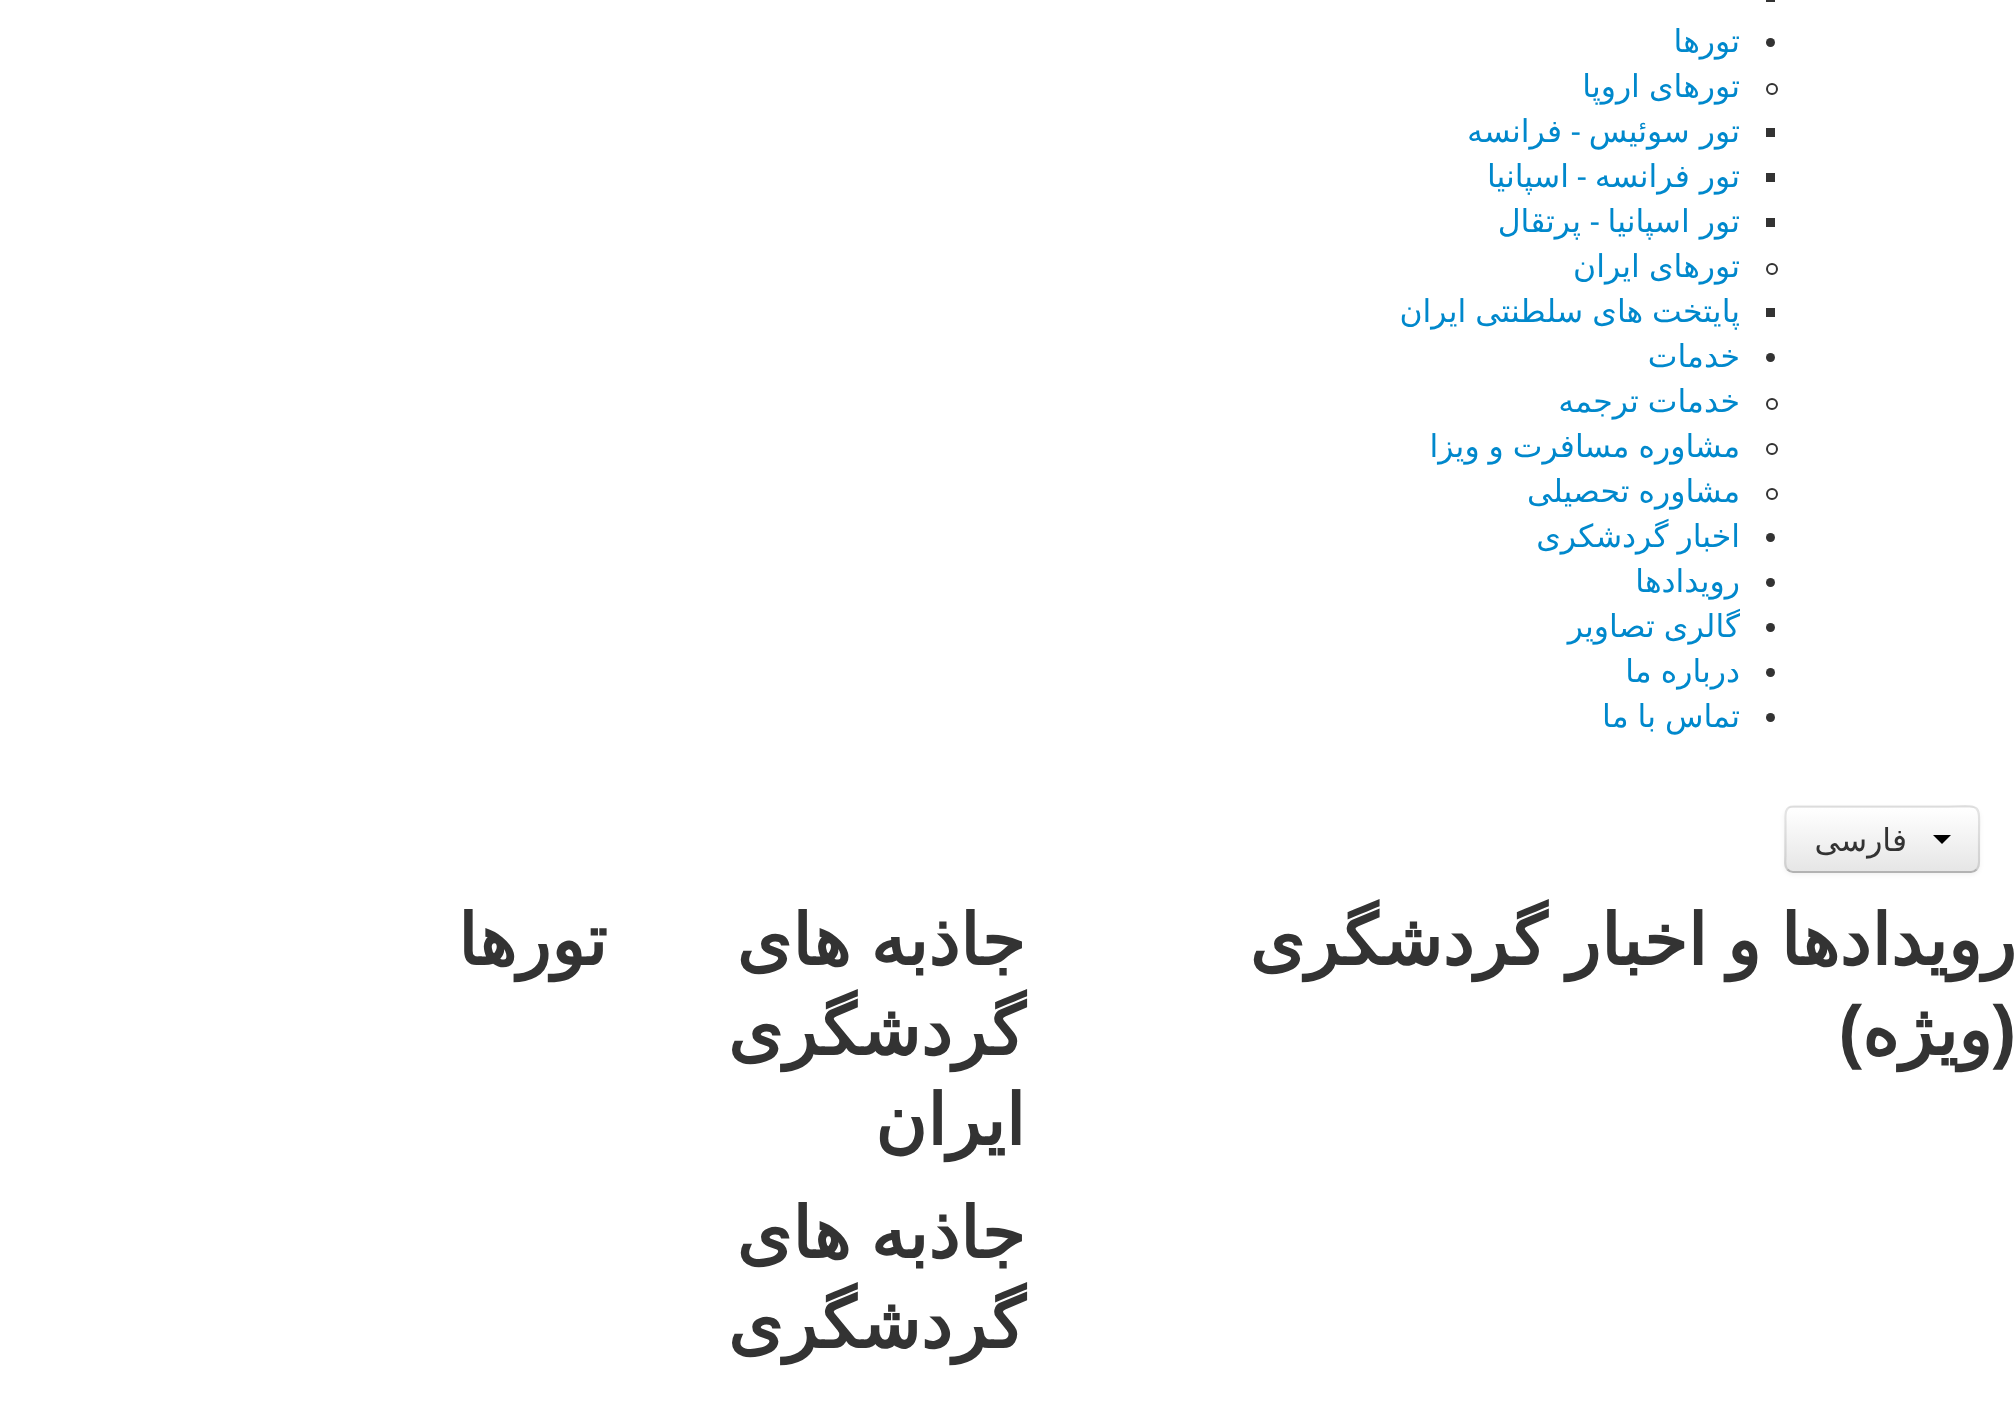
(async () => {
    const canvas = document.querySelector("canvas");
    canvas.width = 2015;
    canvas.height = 1416;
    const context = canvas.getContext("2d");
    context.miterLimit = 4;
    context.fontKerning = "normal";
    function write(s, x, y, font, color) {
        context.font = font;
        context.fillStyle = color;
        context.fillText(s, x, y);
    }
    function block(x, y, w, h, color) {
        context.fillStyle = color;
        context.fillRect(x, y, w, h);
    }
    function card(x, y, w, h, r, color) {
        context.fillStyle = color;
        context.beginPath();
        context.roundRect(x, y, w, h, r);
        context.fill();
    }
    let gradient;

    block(0, 0, 2015, 1416, "rgb(255, 255, 255)");
    block(1766, 0, 9, 2, "rgb(51, 51, 51)");
    context.beginPath();
    context.arc(1770.5, 42.5, 4.5, 0, Math.PI * 2);
    context.fill();
    context.direction = "rtl";
    write("تورها", 1740, 52, "31.5px DejaVu Sans", "rgb(0, 136, 204)");
    context.beginPath();
    context.arc(1772, 89, 5, 0, Math.PI * 2);
    context.strokeStyle = "rgb(51, 51, 51)";
    context.lineWidth = 2;
    context.stroke();
    context.wordSpacing = "-1px";
    write("تورهای اروپا", 1740, 97, "31.5px DejaVu Sans", "rgb(0, 136, 204)");
    block(1766, 128, 9, 9, "rgb(51, 51, 51)");
    context.wordSpacing = "0px";
    write("تور سوئیس", 1740, 142, "31.5px DejaVu Sans", "rgb(0, 136, 204)");
    write("-", 1581, 142, "31.5px Liberation Sans", "rgb(0, 136, 204)");
    write("فرانسه", 1562, 142, "31.5px DejaVu Sans", "rgb(0, 136, 204)");
    block(1766, 173, 9, 9, "rgb(51, 51, 51)");
    write("تور فرانسه", 1740, 187, "31.5px DejaVu Sans", "rgb(0, 136, 204)");
    write("-", 1587, 187, "31.5px Liberation Sans", "rgb(0, 136, 204)");
    write("اسپانیا", 1569, 187, "31.5px DejaVu Sans", "rgb(0, 136, 204)");
    block(1766, 218, 9, 9, "rgb(51, 51, 51)");
    write("تور اسپانیا", 1740, 232, "31.5px DejaVu Sans", "rgb(0, 136, 204)");
    write("-", 1600, 232, "31.5px Liberation Sans", "rgb(0, 136, 204)");
    write("پرتقال", 1581, 232, "31.5px DejaVu Sans", "rgb(0, 136, 204)");
    context.beginPath();
    context.arc(1772, 269, 5, 0, Math.PI * 2);
    context.stroke();
    context.wordSpacing = "-1px";
    write("تورهای ایران", 1740, 277, "31.5px DejaVu Sans", "rgb(0, 136, 204)");
    block(1766, 308, 9, 9, "rgb(51, 51, 51)");
    write("پایتخت های سلطنتی ایران", 1740, 322, "31.5px DejaVu Sans", "rgb(0, 136, 204)");
    context.fillStyle = "rgb(51, 51, 51)";
    context.beginPath();
    context.arc(1770.5, 357.5, 4.5, 0, Math.PI * 2);
    context.fill();
    context.wordSpacing = "0px";
    write("خدمات", 1740, 367, "31.5px DejaVu Sans", "rgb(0, 136, 204)");
    context.beginPath();
    context.arc(1772, 404, 5, 0, Math.PI * 2);
    context.stroke();
    context.wordSpacing = "-1px";
    write("خدمات ترجمه", 1740, 412, "31.5px DejaVu Sans", "rgb(0, 136, 204)");
    context.beginPath();
    context.arc(1772, 449, 5, 0, Math.PI * 2);
    context.stroke();
    write("مشاوره مسافرت و ویزا", 1740, 457, "31.5px DejaVu Sans", "rgb(0, 136, 204)");
    context.beginPath();
    context.arc(1772, 494, 5, 0, Math.PI * 2);
    context.stroke();
    write("مشاوره تحصیلی", 1740, 502, "31.5px DejaVu Sans", "rgb(0, 136, 204)");
    context.fillStyle = "rgb(51, 51, 51)";
    context.beginPath();
    context.arc(1770.5, 537.5, 4.5, 0, Math.PI * 2);
    context.fill();
    write("اخبار گردشکری", 1740, 547, "31.5px DejaVu Sans", "rgb(0, 136, 204)");
    context.fillStyle = "rgb(51, 51, 51)";
    context.beginPath();
    context.arc(1770.5, 582.5, 4.5, 0, Math.PI * 2);
    context.fill();
    context.wordSpacing = "0px";
    write("رویدادها", 1740, 592, "31.5px DejaVu Sans", "rgb(0, 136, 204)");
    context.fillStyle = "rgb(51, 51, 51)";
    context.beginPath();
    context.arc(1770.5, 627.5, 4.5, 0, Math.PI * 2);
    context.fill();
    context.wordSpacing = "-1px";
    write("گالری تصاویر", 1740, 637, "31.5px DejaVu Sans", "rgb(0, 136, 204)");
    context.fillStyle = "rgb(51, 51, 51)";
    context.beginPath();
    context.arc(1770.5, 672.5, 4.5, 0, Math.PI * 2);
    context.fill();
    write("درباره ما", 1740, 682, "31.5px DejaVu Sans", "rgb(0, 136, 204)");
    context.fillStyle = "rgb(51, 51, 51)";
    context.beginPath();
    context.arc(1770.5, 717.5, 4.5, 0, Math.PI * 2);
    context.fill();
    write("تماس با ما", 1740, 727, "31.5px DejaVu Sans", "rgb(0, 136, 204)");
    context.fillStyle = "rgba(0, 0, 0, 0.05)";
    context.filter = "blur(2px)";
    context.beginPath();
    context.roundRect(1784, 808, 196, 67, 9);
    context.fill();
    context.filter = "none";
    card(1784, 806, 196, 67, 9, "rgb(245, 245, 245)");
    context.save();
    context.beginPath();
    context.roundRect(1784, 806, 196, 67, 9);
    context.clip();
    gradient = context.createLinearGradient(1882, 808, 1882, 871);
    gradient.addColorStop(0, "rgb(255, 255, 255)");
    gradient.addColorStop(1, "rgb(230, 230, 230)");
    context.fillStyle = gradient;
    context.fillRect(1784, 808, 196, 63);
    context.restore();
    context.beginPath();
    context.moveTo(1976.5, 869.5);
    context.bezierCurveTo(1975, 871, 1973, 872, 1971, 872);
    context.lineTo(1793, 872);
    context.bezierCurveTo(1791, 872, 1789, 871, 1787.5, 869.5);
    context.strokeStyle = "rgb(179, 179, 179)";
    context.lineWidth = 2.2;
    context.stroke();
    context.beginPath();
    context.moveTo(1787.5, 869.5);
    context.bezierCurveTo(1784, 866, 1785.5, 860, 1785.5, 856);
    context.lineTo(1785.5, 823);
    context.bezierCurveTo(1785.5, 816.5, 1784, 806.5, 1793, 806.5);
    context.lineTo(1941.5, 806.5);
    context.bezierCurveTo(1983.5, 806.5, 1979, 800, 1979, 839);
    context.lineTo(1979, 856);
    context.bezierCurveTo(1979, 860, 1980, 866, 1976.5, 869.5);
    context.strokeStyle = "rgba(0, 0, 0, 0.1)";
    context.stroke();
    context.fillStyle = "rgb(0, 0, 0)";
    context.beginPath();
    context.moveTo(1933, 835);
    context.lineTo(1951, 835);
    context.lineTo(1942, 844);
    context.closePath();
    context.fill();
    context.wordSpacing = "0px";
    write("فارسی", 1907, 851, "31.5px DejaVu Sans", "rgb(51, 51, 51)");
    context.wordSpacing = "-3px";
    write("رویدادها و اخبار گردشگری", 2016, 965, "bold 70.9px DejaVu Sans", "rgb(51, 51, 51)");
    context.wordSpacing = "0px";
    write("(", 2016, 1055, "bold 70.9px Liberation Sans", "rgb(51, 51, 51)");
    write("ویژه", 1992, 1055, "bold 70.9px DejaVu Sans", "rgb(51, 51, 51)");
    write(")", 1862, 1055, "bold 70.9px Liberation Sans", "rgb(51, 51, 51)");
    context.wordSpacing = "-3px";
    write("جاذبه های", 1025, 965, "bold 70.9px DejaVu Sans", "rgb(51, 51, 51)");
    context.wordSpacing = "0px";
    write("گردشگری", 1025, 1055, "bold 70.9px DejaVu Sans", "rgb(51, 51, 51)");
    write("ایران", 1025, 1145, "bold 70.9px DejaVu Sans", "rgb(51, 51, 51)");
    context.wordSpacing = "-3px";
    write("جاذبه های", 1025, 1258, "bold 70.9px DejaVu Sans", "rgb(51, 51, 51)");
    context.wordSpacing = "0px";
    write("گردشگری", 1025, 1348, "bold 70.9px DejaVu Sans", "rgb(51, 51, 51)");
    write("تورها", 607, 965, "bold 70.9px DejaVu Sans", "rgb(51, 51, 51)");
})();
